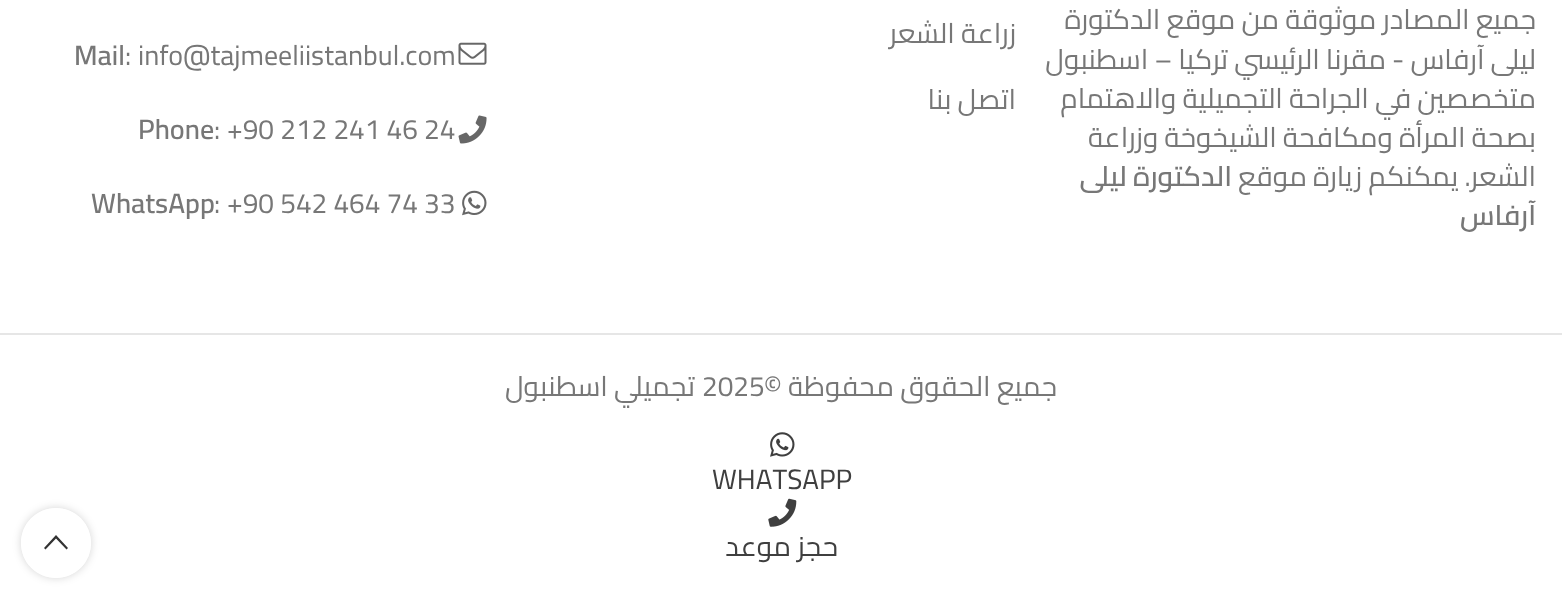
(async () => {
    const canvas = document.querySelector("canvas");
    canvas.width = 1562;
    canvas.height = 598;
    const context = canvas.getContext("2d");
    context.miterLimit = 4;
    context.fontKerning = "normal";
    function write(s, x, y, font, color) {
        context.font = font;
        context.fillStyle = color;
        context.fillText(s, x, y);
    }
    function block(x, y, w, h, color) {
        context.fillStyle = color;
        context.fillRect(x, y, w, h);
    }
    async function photo(src, x, y, w, h) {
        const img = new Image();
        img.src = src;
        await img.decode();
        context.drawImage(img, x, y, w, h);
    }

    block(0, 0, 1562, 598, "rgb(255, 255, 255)");
    context.direction = "rtl";
    write("جميع المصادر موثوقة من موقع الدكتورة", 1536, 29, "28px Cairo", "rgb(119, 119, 119)");
    write("ليلى آرفاس - مقرنا الرئيسي تركيا – اسطنبول", 1536, 69, "28px Cairo", "rgb(119, 119, 119)");
    write("متخصصين في الجراحة التجميلية والاهتمام", 1536, 108, "28px Cairo", "rgb(119, 119, 119)");
    write("بصحة المرأة ومكافحة الشيخوخة وزراعة", 1536, 147, "28px Cairo", "rgb(119, 119, 119)");
    write("الشعر. يمكنكم زيارة موقع", 1536, 186, "28px Cairo", "rgb(119, 119, 119)");
    write("الدكتورة ليلى", 1232, 186, "600 28px Cairo", "rgb(119, 119, 119)");
    write("آرفاس", 1536, 225, "600 28px Cairo", "rgb(119, 119, 119)");
    write("زراعة الشعر", 1016, 43, "28px Cairo", "rgb(119, 119, 119)");
    write("اتصل بنا", 1016, 109, "28px Cairo", "rgb(119, 119, 119)");
    await photo("media/1.png", 458, 42, 29, 23);
    context.direction = "ltr";
    write("info@tajmeeliistanbul.com", 138, 65, "28px Cairo", "rgb(119, 119, 119)");
    write(":", 125, 65, "28px Cairo", "rgb(119, 119, 119)");
    write("Mail", 74, 65, "600 28px Cairo", "rgb(119, 119, 119)");
    await photo("media/2.png", 458, 115, 29, 29);
    write("+90 212 241 46 24", 227, 139, "28px Cairo", "rgb(119, 119, 119)");
    write(":", 214, 139, "28px Cairo", "rgb(119, 119, 119)");
    write("Phone", 138, 139, "600 28px Cairo", "rgb(119, 119, 119)");
    await photo("media/3.png", 462, 190, 25, 26);
    write("+90 542 464 74 33", 227, 213, "28px Cairo", "rgb(119, 119, 119)");
    write(":", 214, 213, "28px Cairo", "rgb(119, 119, 119)");
    write("WhatsApp", 91, 213, "600 28px Cairo", "rgb(119, 119, 119)");
    block(0, 333, 1562, 2, "rgb(230, 230, 230)");
    context.direction = "rtl";
    write("جميع الحقوق محفوظة ©", 1057, 396, "28px Cairo", "rgb(119, 119, 119)");
    context.direction = "ltr";
    write("2025", 702, 396, "28px Cairo", "rgb(119, 119, 119)");
    context.direction = "rtl";
    write("تجميلي اسطنبول", 695, 396, "28px Cairo", "rgb(119, 119, 119)");
    await photo("media/4.png", 770, 432, 25, 25);
    context.direction = "ltr";
    write("WHATSAPP", 712, 489, "28px Cairo", "rgb(63, 63, 63)");
    await photo("media/5.png", 768, 498, 29, 29);
    context.direction = "rtl";
    write("حجز موعد", 838, 556, "28px Cairo", "rgb(63, 63, 63)");
    context.save();
    context.beginPath();
    context.moveTo(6, 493);
    context.lineTo(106, 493);
    context.lineTo(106, 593);
    context.lineTo(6, 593);
    context.closePath();
    context.moveTo(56, 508);
    context.bezierCurveTo(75.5, 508, 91, 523.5, 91, 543);
    context.bezierCurveTo(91, 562.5, 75.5, 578, 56, 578);
    context.bezierCurveTo(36.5, 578, 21, 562.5, 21, 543);
    context.bezierCurveTo(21, 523.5, 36.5, 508, 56, 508);
    context.closePath();
    context.clip("evenodd");
    context.fillStyle = "rgba(0, 0, 0, 0.17)";
    context.filter = "blur(4.5px)";
    context.beginPath();
    context.roundRect(21, 508, 70, 70, 35);
    context.fill();
    context.filter = "none";
    context.restore();
    context.fillStyle = "rgba(255, 255, 255, 0.9)";
    context.beginPath();
    context.arc(56, 543, 35, 0, Math.PI * 2);
    context.fill();
    context.fillStyle = "rgb(51, 51, 51)";
    context.beginPath();
    context.moveTo(56, 535);
    context.lineTo(68, 548);
    context.lineTo(66.5, 549.5);
    context.lineTo(56, 538.5);
    context.lineTo(45.5, 549.5);
    context.lineTo(44, 548);
    context.closePath();
    context.fill();
})();
